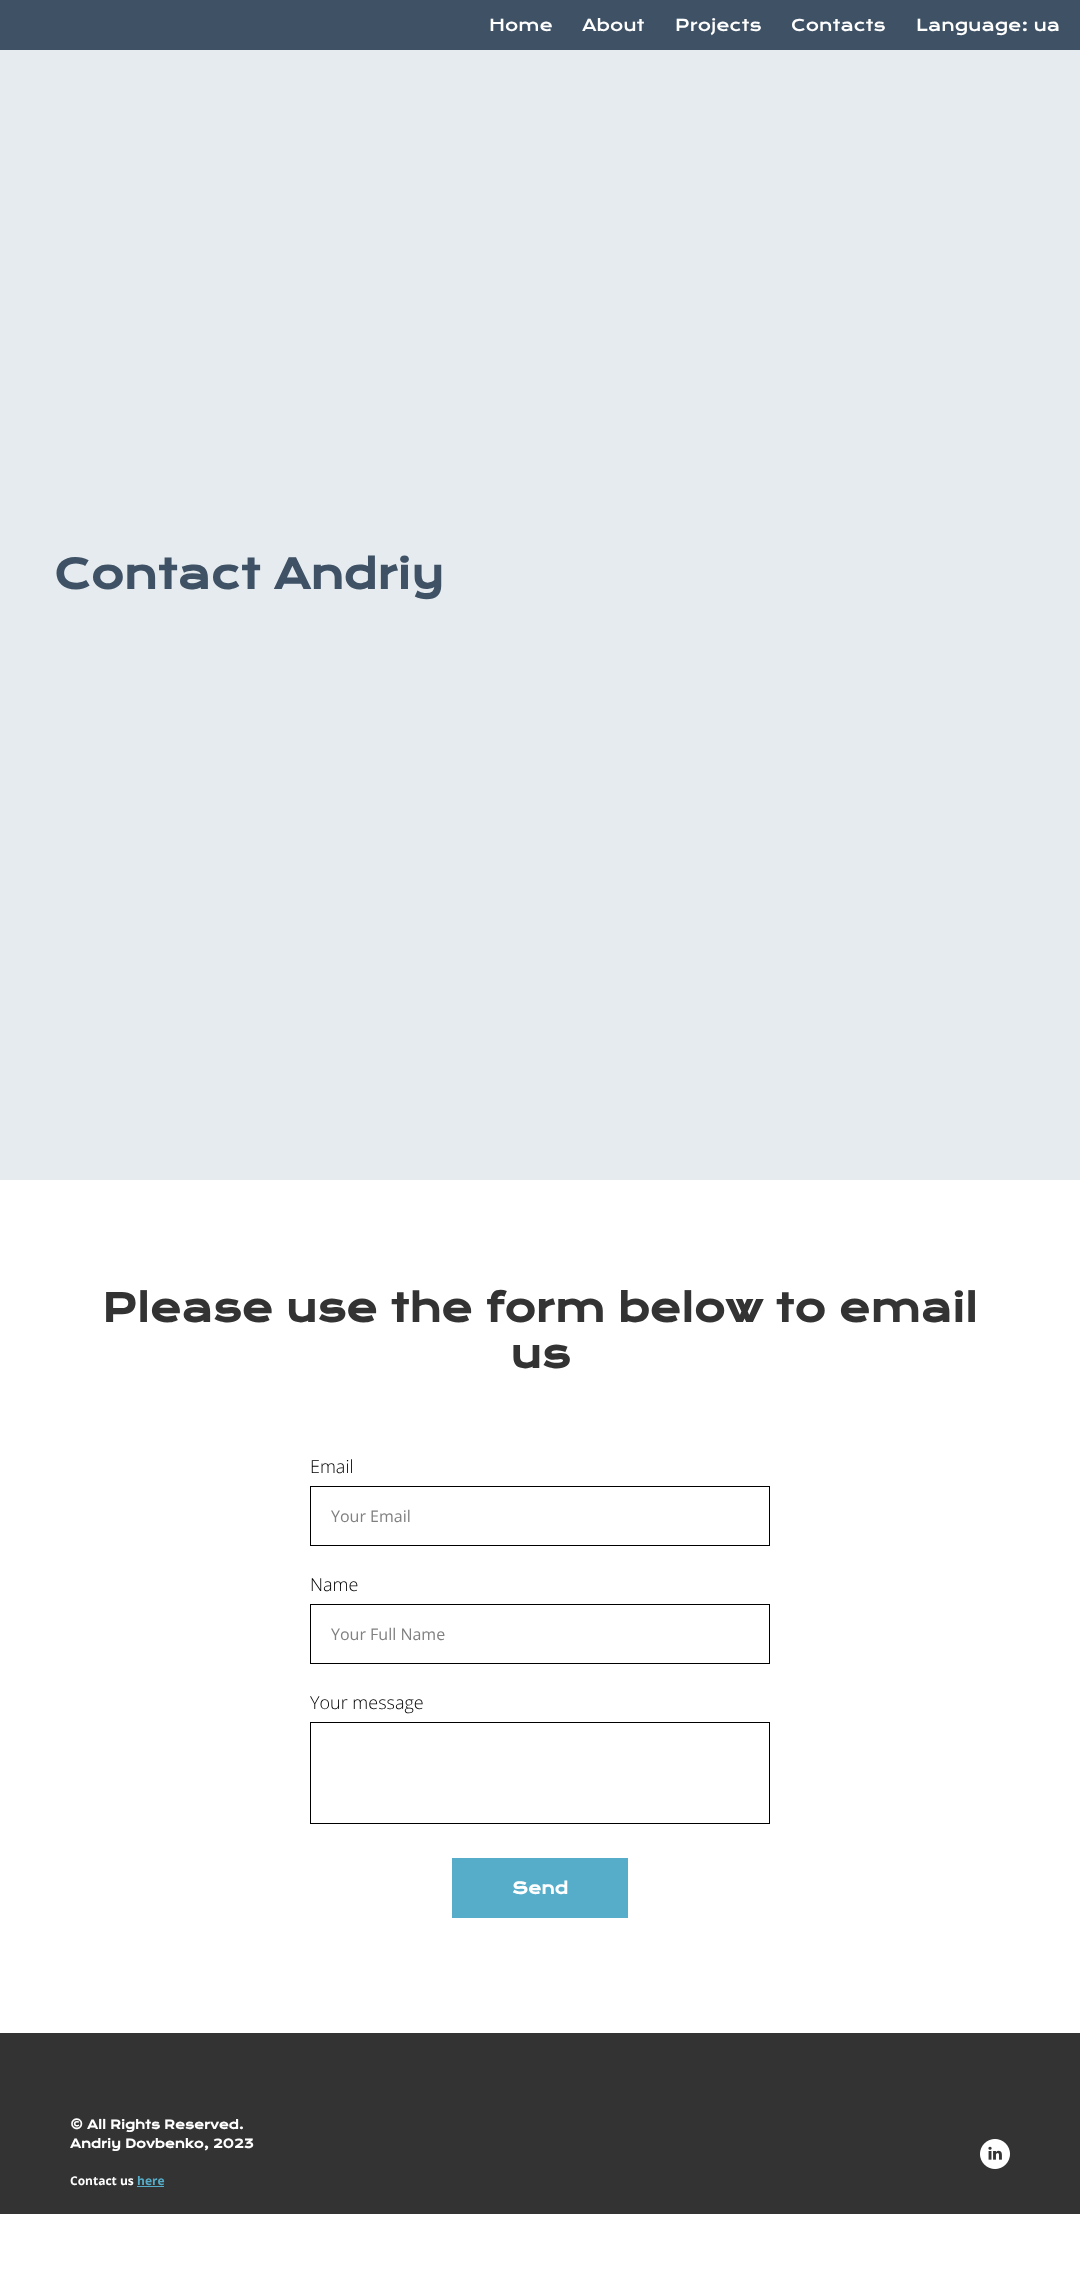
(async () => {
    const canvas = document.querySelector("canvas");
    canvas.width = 1080;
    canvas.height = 2269;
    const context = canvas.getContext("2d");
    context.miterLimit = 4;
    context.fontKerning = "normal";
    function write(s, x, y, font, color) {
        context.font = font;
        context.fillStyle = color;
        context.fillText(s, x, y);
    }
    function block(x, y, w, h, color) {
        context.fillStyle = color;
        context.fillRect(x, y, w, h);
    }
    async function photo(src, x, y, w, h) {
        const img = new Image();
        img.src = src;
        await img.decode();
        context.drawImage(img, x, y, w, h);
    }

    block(0, 0, 1080, 2269, "rgb(255, 255, 255)");
    block(0, 0, 1080, 50, "rgb(62, 81, 101)");
    write("Home", 489, 31, "16px Krona One", "rgb(255, 255, 255)");
    write("About", 582, 31, "16px Krona One", "rgb(255, 255, 255)");
    write("Projects", 675, 31, "16px Krona One", "rgb(255, 255, 255)");
    write("Contacts", 791, 31, "16px Krona One", "rgb(255, 255, 255)");
    write("Language: ua", 916, 31, "16px Krona One", "rgb(255, 255, 255)");
    block(0, 50, 1080, 1130, "rgb(230, 235, 239)");
    write("Contact Andriy", 54, 589, "bold 40px Krona One", "rgb(62, 81, 101)");
    write("Please use the form below to email", 102, 1322, "bold 38px Krona One", "rgb(51, 51, 51)");
    write("us", 510, 1368, "bold 38px Krona One", "rgb(51, 51, 51)");
    write("Email", 310, 1473, "300 18px Open Sans", "rgb(0, 0, 0)");
    context.strokeStyle = "rgb(0, 0, 0)";
    context.strokeRect(310.5, 1486.5, 459, 59);
    write("Your Email", 331, 1522, "16px Open Sans", "rgb(128, 128, 128)");
    write("Name", 310, 1591, "300 18px Open Sans", "rgb(0, 0, 0)");
    context.strokeRect(310.5, 1604.5, 459, 59);
    write("Your Full Name", 331, 1640, "16px Open Sans", "rgb(128, 128, 128)");
    write("Your message", 310, 1709, "300 18px Open Sans", "rgb(0, 0, 0)");
    context.strokeRect(310.5, 1722.5, 459, 101);
    block(452, 1858, 176, 60, "rgb(86, 173, 201)");
    write("Send", 512, 1894, "bold 16px Krona One", "rgb(255, 255, 255)");
    block(0, 2033, 1080, 181, "rgb(51, 51, 51)");
    write("© All Rights Reserved.", 70, 2129, "bold 12px Krona One", "rgb(255, 255, 255)");
    write("Andriy Dovbenko, 2023", 70, 2148, "bold 12px Krona One", "rgb(255, 255, 255)");
    write("Contact us", 70, 2185, "bold 12px Open Sans", "rgb(255, 255, 255)");
    write("here", 137, 2185, "bold 12px Open Sans", "rgb(86, 173, 201)");
    block(137, 2186, 27, 1, "rgb(86, 173, 201)");
    await photo("media/1.png", 980, 2139, 30, 30);
})();
